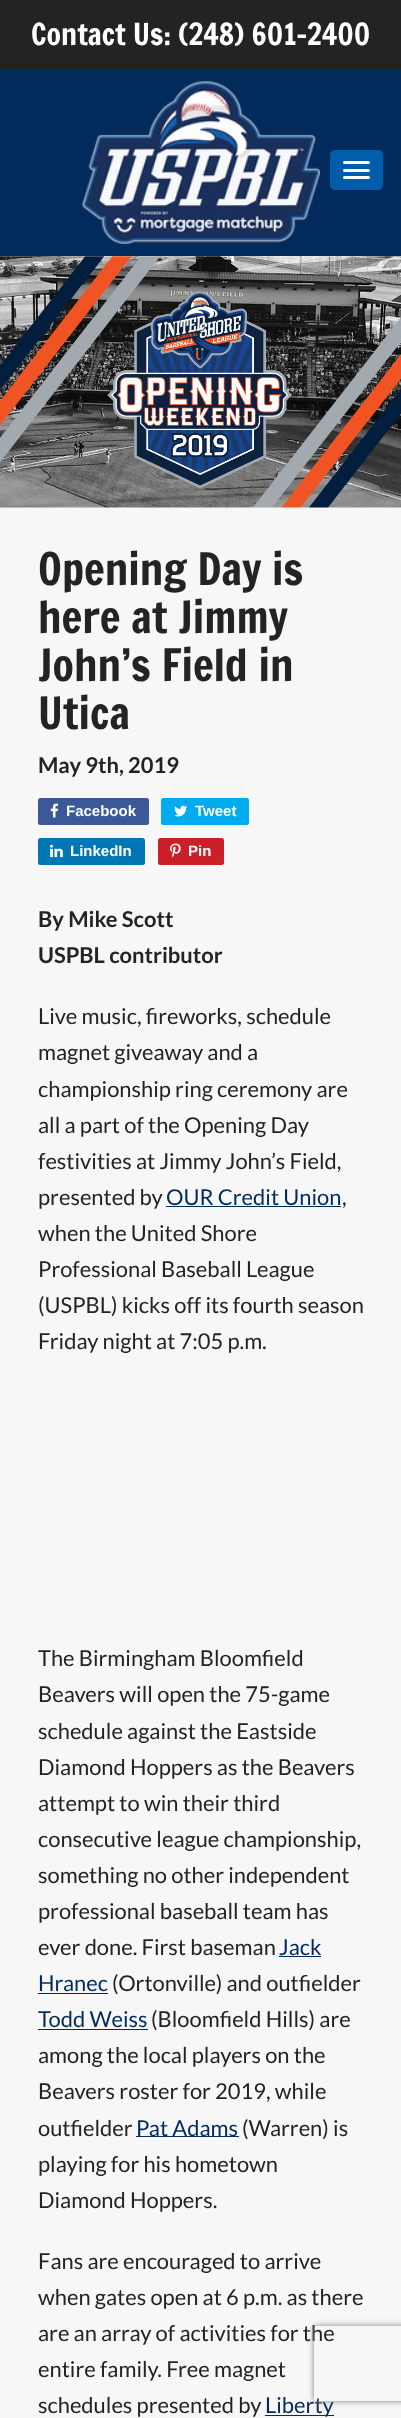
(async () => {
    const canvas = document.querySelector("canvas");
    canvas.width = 401;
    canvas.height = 2418;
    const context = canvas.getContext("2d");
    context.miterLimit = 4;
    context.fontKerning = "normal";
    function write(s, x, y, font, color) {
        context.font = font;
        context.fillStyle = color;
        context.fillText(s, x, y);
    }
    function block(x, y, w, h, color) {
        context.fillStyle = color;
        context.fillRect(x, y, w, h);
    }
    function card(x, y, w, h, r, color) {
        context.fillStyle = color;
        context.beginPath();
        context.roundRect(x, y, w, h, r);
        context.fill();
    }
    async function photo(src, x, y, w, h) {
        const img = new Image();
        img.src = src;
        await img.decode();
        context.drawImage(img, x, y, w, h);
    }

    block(0, 0, 401, 2418, "rgb(35, 35, 35)");
    write("Contact Us: (248) 601-2400", 31, 45, "29.75px Francois One", "rgb(255, 255, 255)");
    block(0, 69, 401, 187, "rgb(0, 43, 92)");
    await photo("media/1.png", 82, 81, 238, 163);
    card(330, 150, 53, 40, 5, "rgb(0, 93, 171)");
    card(343, 161, 27, 3, 1.5, "rgb(255, 255, 255)");
    card(343, 169, 27, 3, 1.5, "rgb(255, 255, 255)");
    card(343, 176, 27, 3, 1.5, "rgb(255, 255, 255)");
    block(0, 256, 401, 2162, "rgb(247, 247, 247)");
    await photo("media/2.png", 0, 256, 401, 252);
    write("Opening Day is", 38, 585, "43.75px Francois One", "rgb(35, 35, 35)");
    write("here at Jimmy", 38, 633, "43.75px Francois One", "rgb(35, 35, 35)");
    write("John’s Field in", 38, 681, "43.75px Francois One", "rgb(35, 35, 35)");
    write("Utica", 38, 729, "43.75px Francois One", "rgb(35, 35, 35)");
    write("May 9th, 2019", 38, 773, "bold 21.9px Lato", "rgb(35, 35, 35)");
    card(38, 798, 111, 27, 2.5, "rgb(59, 89, 152)");
    await photo("media/3.png", 50, 803, 9, 15);
    write("Facebook", 66, 816, "bold 15px Liberation Sans", "rgb(255, 255, 255)");
    card(161, 798, 88, 27, 2.5, "rgb(0, 172, 237)");
    await photo("media/4.png", 174, 805, 14, 12);
    write("Tweet", 195, 816, "bold 15px Liberation Sans", "rgb(255, 255, 255)");
    card(38, 838, 107, 27, 2.5, "rgb(0, 119, 181)");
    await photo("media/5.png", 50, 844, 13, 14);
    write("LinkedIn", 70, 856, "bold 15px Liberation Sans", "rgb(255, 255, 255)");
    card(158, 838, 66, 27, 2.5, "rgb(203, 32, 39)");
    await photo("media/6.png", 170, 843, 11, 15);
    write("Pin", 188, 856, "bold 15px Liberation Sans", "rgb(255, 255, 255)");
    write("By Mike Scott", 38, 927, "bold 21.9px Lato", "rgb(35, 35, 35)");
    write("USPBL contributor", 38, 963, "bold 21.9px Lato", "rgb(35, 35, 35)");
    write("Live music, fireworks, schedule", 38, 1024, "21.9px Lato", "rgb(35, 35, 35)");
    write("magnet giveaway and a", 38, 1060, "21.9px Lato", "rgb(35, 35, 35)");
    write("championship ring ceremony are", 38, 1097, "21.9px Lato", "rgb(35, 35, 35)");
    write("all a part of the Opening Day", 38, 1133, "21.9px Lato", "rgb(35, 35, 35)");
    write("festivities at Jimmy John’s Field,", 38, 1169, "21.9px Lato", "rgb(35, 35, 35)");
    write("presented by", 38, 1205, "21.9px Lato", "rgb(35, 35, 35)");
    write("OUR Credit Union", 166, 1205, "21.9px Lato", "rgb(0, 43, 92)");
    block(166, 1206, 175, 1, "rgb(0, 43, 92)");
    write(",", 342, 1205, "21.9px Lato", "rgb(35, 35, 35)");
    write("when the United Shore", 38, 1241, "21.9px Lato", "rgb(35, 35, 35)");
    write("Professional Baseball League", 38, 1277, "21.9px Lato", "rgb(35, 35, 35)");
    write("(USPBL) kicks off its fourth season", 38, 1313, "21.9px Lato", "rgb(35, 35, 35)");
    write("Friday night at 7:05 p.m.", 38, 1349, "21.9px Lato", "rgb(35, 35, 35)");
    write("The Birmingham Bloomfield", 38, 1666, "21.9px Lato", "rgb(35, 35, 35)");
    write("Beavers will open the 75-game", 38, 1702, "21.9px Lato", "rgb(35, 35, 35)");
    write("schedule against the Eastside", 38, 1739, "21.9px Lato", "rgb(35, 35, 35)");
    write("Diamond Hoppers as the Beavers", 38, 1775, "21.9px Lato", "rgb(35, 35, 35)");
    write("attempt to win their third", 38, 1811, "21.9px Lato", "rgb(35, 35, 35)");
    write("consecutive league championship,", 38, 1847, "21.9px Lato", "rgb(35, 35, 35)");
    write("something no other independent", 38, 1883, "21.9px Lato", "rgb(35, 35, 35)");
    write("professional baseball team has", 38, 1919, "21.9px Lato", "rgb(35, 35, 35)");
    write("ever done. First baseman", 38, 1955, "21.9px Lato", "rgb(35, 35, 35)");
    write("Jack", 279, 1955, "21.9px Lato", "rgb(0, 43, 92)");
    block(279, 1956, 42, 1, "rgb(0, 43, 92)");
    write("Hranec", 38, 1991, "21.9px Lato", "rgb(0, 43, 92)");
    block(38, 1993, 70, 1, "rgb(0, 43, 92)");
    write("(Ortonville) and outfielder", 112, 1991, "21.9px Lato", "rgb(35, 35, 35)");
    write("Todd Weiss", 38, 2027, "21.9px Lato", "rgb(0, 43, 92)");
    block(38, 2029, 110, 1, "rgb(0, 43, 92)");
    write("(Bloomfield Hills) are", 151, 2027, "21.9px Lato", "rgb(35, 35, 35)");
    write("among the local players on the", 38, 2063, "21.9px Lato", "rgb(35, 35, 35)");
    write("Beavers roster for 2019, while", 38, 2099, "21.9px Lato", "rgb(35, 35, 35)");
    write("outfielder", 38, 2136, "21.9px Lato", "rgb(35, 35, 35)");
    block(136, 2136, 103, 1, "rgb(0, 43, 92)");
    write("Pat Adams", 136, 2136, "21.9px Lato", "rgb(0, 43, 92)");
    write("(Warren) is", 242, 2136, "21.9px Lato", "rgb(35, 35, 35)");
    write("playing for his hometown", 38, 2172, "21.9px Lato", "rgb(35, 35, 35)");
    write("Diamond Hoppers.", 38, 2208, "21.9px Lato", "rgb(35, 35, 35)");
    write("Fans are encouraged to arrive", 38, 2269, "21.9px Lato", "rgb(35, 35, 35)");
    write("when gates open at 6 p.m. as there", 38, 2305, "21.9px Lato", "rgb(35, 35, 35)");
    write("are an array of activities for the", 38, 2341, "21.9px Lato", "rgb(35, 35, 35)");
    write("entire family. Free magnet", 38, 2377, "21.9px Lato", "rgb(35, 35, 35)");
    write("schedules presented by", 38, 2413, "21.9px Lato", "rgb(35, 35, 35)");
    block(265, 2415, 69, 1, "rgb(0, 43, 92)");
    write("Liberty", 265, 2413, "21.9px Lato", "rgb(0, 43, 92)");
    context.save();
    context.beginPath();
    context.moveTo(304, 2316);
    context.lineTo(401, 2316);
    context.lineTo(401, 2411);
    context.lineTo(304, 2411);
    context.closePath();
    context.moveTo(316.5, 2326);
    context.lineTo(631.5, 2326);
    context.bezierCurveTo(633, 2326, 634, 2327, 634, 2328.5);
    context.lineTo(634, 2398.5);
    context.bezierCurveTo(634, 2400, 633, 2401, 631.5, 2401);
    context.lineTo(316.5, 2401);
    context.bezierCurveTo(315, 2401, 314, 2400, 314, 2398.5);
    context.lineTo(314, 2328.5);
    context.bezierCurveTo(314, 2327, 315, 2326, 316.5, 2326);
    context.closePath();
    context.clip("evenodd");
    context.fillStyle = "rgb(128, 128, 128)";
    context.filter = "blur(3px)";
    context.beginPath();
    context.roundRect(314, 2326, 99, 75, 2.5);
    context.fill();
    context.filter = "none";
    context.restore();
})();
